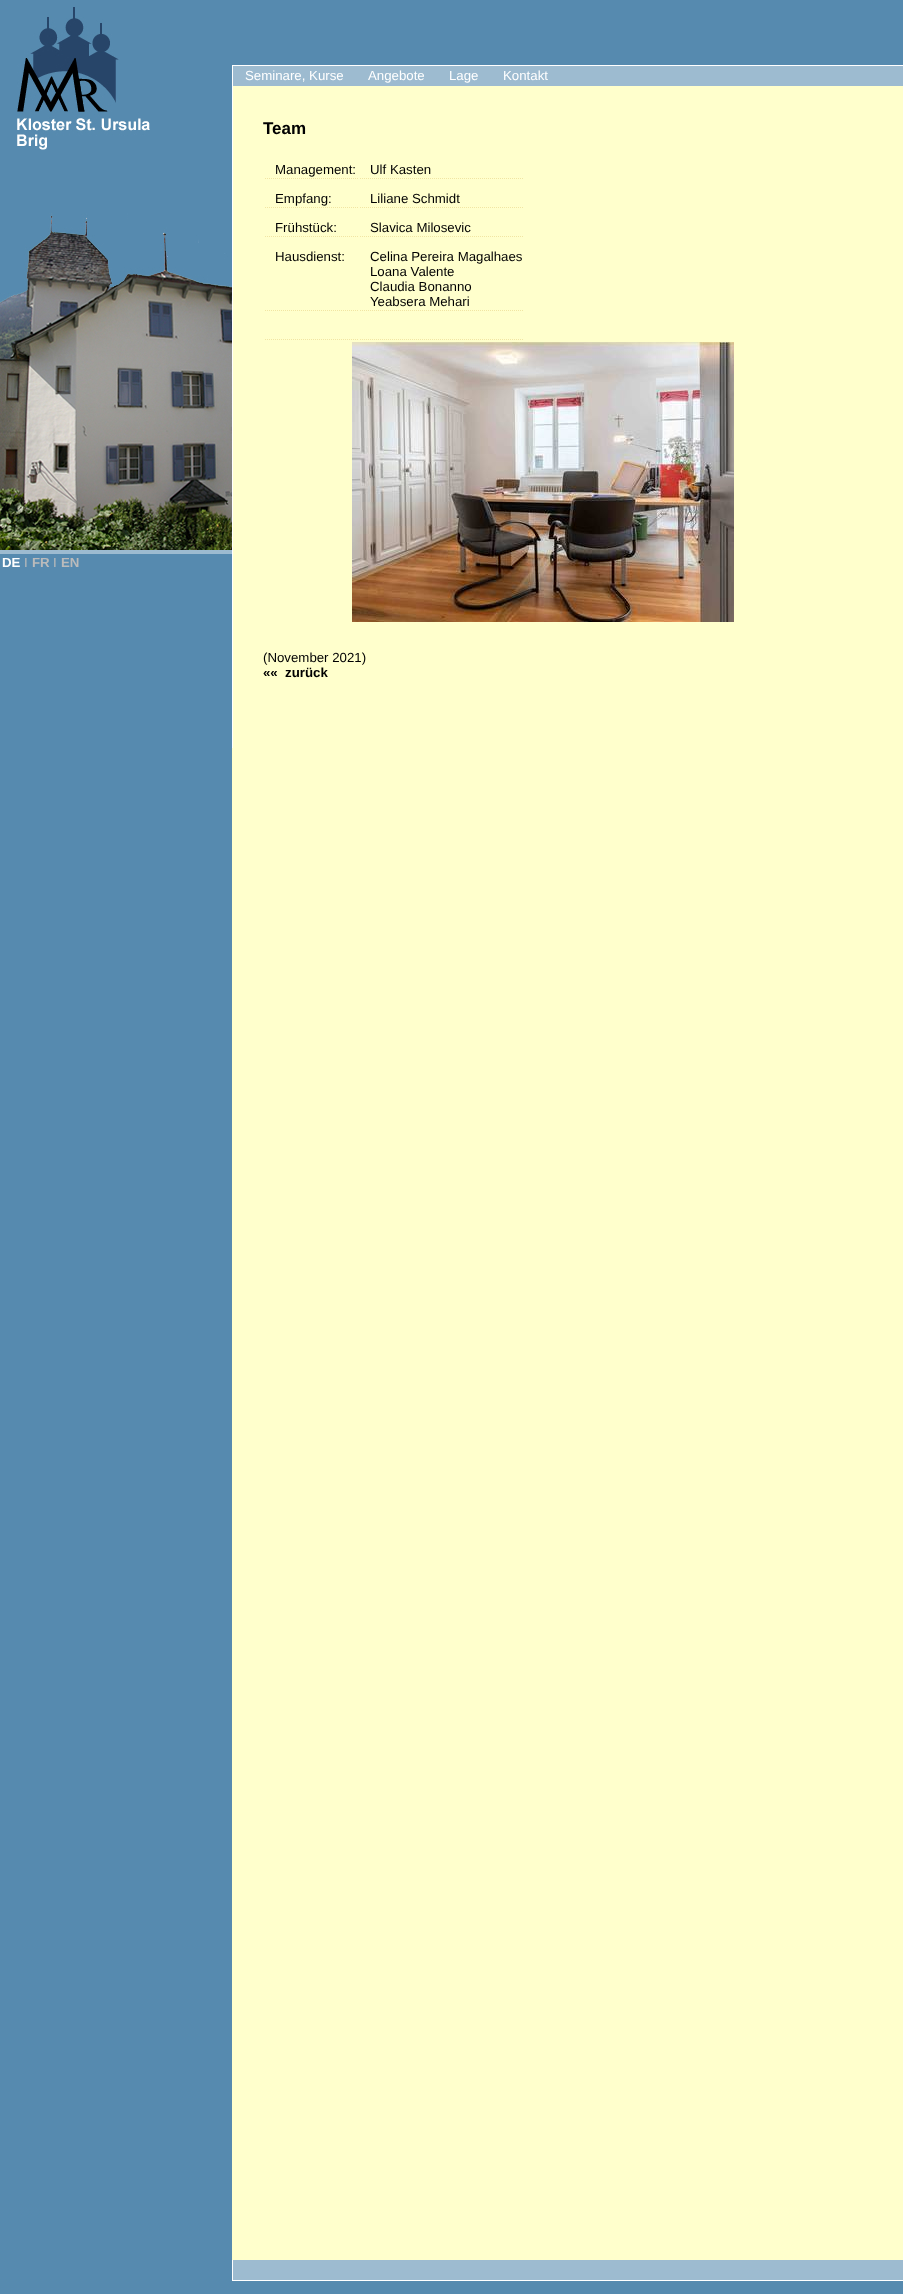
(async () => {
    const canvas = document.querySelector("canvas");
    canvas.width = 903;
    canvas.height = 2294;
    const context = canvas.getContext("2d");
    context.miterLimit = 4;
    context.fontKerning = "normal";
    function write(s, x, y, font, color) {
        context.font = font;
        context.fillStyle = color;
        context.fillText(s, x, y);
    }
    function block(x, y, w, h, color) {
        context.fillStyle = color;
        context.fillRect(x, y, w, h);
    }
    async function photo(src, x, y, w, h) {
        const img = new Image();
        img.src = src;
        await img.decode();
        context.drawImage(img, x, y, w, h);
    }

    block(0, 0, 903, 2294, "rgb(255, 255, 204)");
    block(232, 0, 671, 65, "rgb(86, 138, 175)");
    block(233, 66, 670, 20, "rgb(157, 187, 208)");
    block(232, 65, 671, 1, "rgb(255, 255, 255)");
    block(232, 65, 1, 21, "rgb(255, 255, 255)");
    write("Seminare, Kurse", 245, 80, "13.25px Liberation Sans", "rgb(255, 255, 255)");
    write("Angebote", 368, 80, "13.25px Liberation Sans", "rgb(255, 255, 255)");
    write("Lage", 449, 80, "13.25px Liberation Sans", "rgb(255, 255, 255)");
    write("Kontakt", 503, 80, "13.25px Liberation Sans", "rgb(255, 255, 255)");
    block(0, 0, 232, 2294, "rgb(86, 138, 175)");
    await photo("media/1.png", 17, 7, 133, 143);
    await photo("media/2.png", 0, 213, 232, 337);
    block(0, 550, 232, 4, "rgb(157, 187, 208)");
    write("DE", 2, 567, "bold 13.25px Liberation Sans", "rgb(255, 255, 255)");
    write("Ι", 24, 567, "13.25px Liberation Sans", "rgb(187, 187, 187)");
    write("FR", 32, 567, "bold 13.25px Liberation Sans", "rgb(187, 187, 187)");
    write("Ι", 53, 567, "13.25px Liberation Sans", "rgb(187, 187, 187)");
    write("EN", 61, 567, "bold 13.25px Liberation Sans", "rgb(187, 187, 187)");
    block(232, 86, 1, 662, "rgb(255, 255, 255)");
    write("Team", 263, 134, "bold 17px Liberation Sans", "rgb(0, 0, 0)");
    context.beginPath();
    context.moveTo(265, 178.5);
    context.lineTo(358, 178.5);
    context.strokeStyle = "rgb(241, 229, 163)";
    context.setLineDash([1, 1]);
    context.stroke();
    write("Management:", 275, 174, "13.25px Liberation Sans", "rgb(0, 0, 0)");
    context.beginPath();
    context.moveTo(360, 178.5);
    context.lineTo(524, 178.5);
    context.stroke();
    write("Ulf Kasten", 370, 174, "13.25px Liberation Sans", "rgb(0, 0, 0)");
    context.beginPath();
    context.moveTo(265, 207.5);
    context.lineTo(358, 207.5);
    context.stroke();
    write("Empfang:", 275, 203, "13.25px Liberation Sans", "rgb(0, 0, 0)");
    context.beginPath();
    context.moveTo(360, 207.5);
    context.lineTo(524, 207.5);
    context.stroke();
    write("Liliane Schmidt", 370, 203, "13.25px Liberation Sans", "rgb(0, 0, 0)");
    context.beginPath();
    context.moveTo(265, 236.5);
    context.lineTo(358, 236.5);
    context.stroke();
    write("Frühstück:", 275, 232, "13.25px Liberation Sans", "rgb(0, 0, 0)");
    context.beginPath();
    context.moveTo(360, 236.5);
    context.lineTo(524, 236.5);
    context.stroke();
    write("Slavica Milosevic", 370, 232, "13.25px Liberation Sans", "rgb(0, 0, 0)");
    context.beginPath();
    context.moveTo(265, 310.5);
    context.lineTo(358, 310.5);
    context.stroke();
    write("Hausdienst:", 275, 261, "13.25px Liberation Sans", "rgb(0, 0, 0)");
    context.beginPath();
    context.moveTo(360, 310.5);
    context.lineTo(524, 310.5);
    context.stroke();
    write("Celina Pereira Magalhaes", 370, 261, "13.25px Liberation Sans", "rgb(0, 0, 0)");
    write("Loana Valente", 370, 276, "13.25px Liberation Sans", "rgb(0, 0, 0)");
    write("Claudia Bonanno", 370, 291, "13.25px Liberation Sans", "rgb(0, 0, 0)");
    write("Yeabsera Mehari", 370, 306, "13.25px Liberation Sans", "rgb(0, 0, 0)");
    context.beginPath();
    context.moveTo(265, 339.5);
    context.lineTo(358, 339.5);
    context.stroke();
    context.beginPath();
    context.moveTo(360, 339.5);
    context.lineTo(524, 339.5);
    context.stroke();
    await photo("media/3.png", 352, 342, 382, 280);
    write("(November 2021)", 263, 662, "13.25px Liberation Sans", "rgb(0, 0, 0)");
    write("««  zurück", 263, 677, "bold 13.25px Liberation Sans", "rgb(0, 0, 0)");
    block(233, 2260, 670, 20, "rgb(157, 187, 208)");
    block(232, 2280, 671, 1, "rgb(255, 255, 255)");
    block(232, 2260, 1, 21, "rgb(255, 255, 255)");
    block(232, 2281, 671, 13, "rgb(86, 138, 175)");
})();
